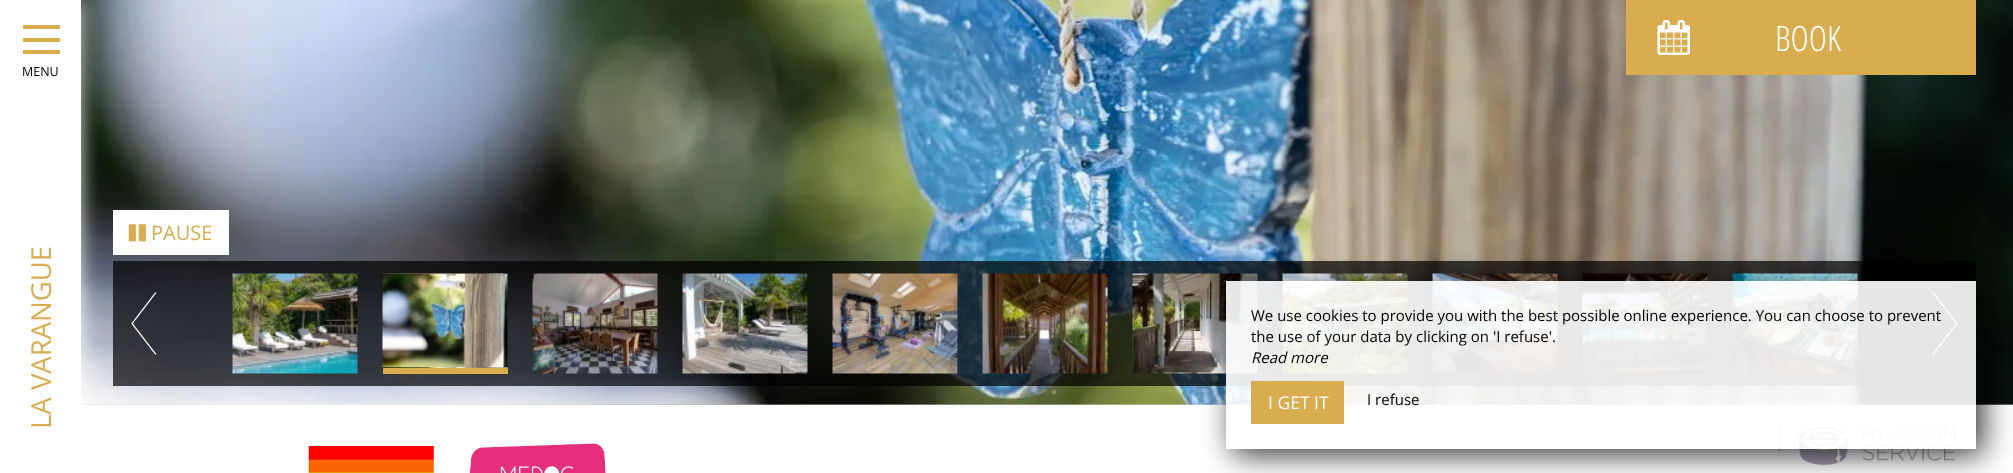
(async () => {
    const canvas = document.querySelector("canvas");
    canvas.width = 2013;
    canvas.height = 473;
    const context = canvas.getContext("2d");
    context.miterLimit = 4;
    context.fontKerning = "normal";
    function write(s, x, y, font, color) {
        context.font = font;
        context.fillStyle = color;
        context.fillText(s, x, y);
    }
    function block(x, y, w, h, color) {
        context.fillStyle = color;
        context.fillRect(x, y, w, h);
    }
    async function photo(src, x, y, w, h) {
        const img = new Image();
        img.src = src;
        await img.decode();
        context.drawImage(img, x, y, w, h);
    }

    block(0, 0, 2013, 473, "rgb(255, 255, 255)");
    context.save();
    context.beginPath();
    context.rect(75, 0, 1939, 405);
    context.clip();
    context.fillStyle = "rgb(238, 238, 238)";
    context.filter = "blur(31px)";
    context.beginPath();
    context.rect(75, -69, 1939, 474);
    context.fill();
    context.filter = "none";
    context.restore();
    await photo("media/2.png", 81, 404, 1932, 1);
    await photo("media/3.png", 81, 0, 1932, 405);
    context.fillStyle = "rgba(255, 255, 255, 0.9)";
    context.filter = "blur(9.5px)";
    context.beginPath();
    context.rect(0, 0, 81, 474);
    context.fill();
    context.filter = "none";
    block(75, 0, 6, 405, "rgb(255, 255, 255)");
    block(23, 25, 37, 4, "rgb(218, 172, 80)");
    block(23, 38, 37, 4, "rgb(218, 172, 80)");
    block(23, 50, 37, 4, "rgb(218, 172, 80)");
    write("MENU", 22, 76, "12.5px Open Sans", "rgb(0, 0, 0)");
    context.font = "27.5px Open Sans";
    context.fillStyle = "rgb(218, 172, 80)";
    context.save();
    context.translate(51, 429);
    context.rotate(-90 * Math.PI / 180);
    context.fillText("LA VARANGUE", 0, 0);
    context.restore();
    block(1626, 0, 350, 75, "rgb(218, 172, 80)");
    await photo("media/1.png", 1657, 20, 33, 35);
    write("BOOK", 1775, 51, "300 35px Open Sans Condensed", "rgb(255, 255, 255)");
    block(113, 210, 116, 45, "rgb(255, 255, 255)");
    await photo("media/4.png", 128, 224, 18, 18);
    write("PAUSE", 151, 240, "20px Open Sans", "rgb(218, 172, 80)");
    block(113, 261, 1863, 125, "rgba(0, 0, 0, 0.7)");
    await photo("media/5.png", 131, 292, 26, 63);
    await photo("media/6.png", 232, 273, 126, 101);
    await photo("media/7.png", 382, 273, 126, 101);
    block(383, 368, 125, 6, "rgb(218, 172, 80)");
    await photo("media/8.png", 532, 273, 126, 101);
    await photo("media/9.png", 682, 273, 126, 101);
    await photo("media/10.png", 832, 273, 126, 101);
    await photo("media/11.png", 982, 273, 126, 101);
    await photo("media/12.png", 1132, 273, 126, 101);
    await photo("media/13.png", 1282, 273, 126, 101);
    await photo("media/14.png", 1432, 273, 126, 101);
    await photo("media/15.png", 1582, 273, 126, 101);
    await photo("media/16.png", 1732, 273, 126, 101);
    await photo("media/17.png", 1932, 292, 26, 63);
    block(1779, 426, 1, 25, "rgb(153, 153, 153)");
    await photo("media/20.png", 1798, 427, 157, 38);
    context.save();
    context.beginPath();
    context.moveTo(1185, 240);
    context.lineTo(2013, 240);
    context.lineTo(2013, 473);
    context.lineTo(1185, 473);
    context.closePath();
    context.moveTo(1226, 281);
    context.lineTo(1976, 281);
    context.lineTo(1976, 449);
    context.lineTo(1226, 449);
    context.closePath();
    context.clip("evenodd");
    context.fillStyle = "rgba(0, 0, 0, 0.8)";
    context.filter = "blur(15.5px)";
    context.beginPath();
    context.rect(1233, 288, 750, 167);
    context.fill();
    context.filter = "none";
    context.restore();
    block(1226, 281, 750, 168, "rgba(255, 255, 255, 0.9)");
    write("We use cookies to provide you with the best possible online experience. You can choose to prevent", 1251, 321, "15px Open Sans", "rgb(0, 0, 0)");
    write("the use of your data by clicking on 'I refuse'.", 1251, 342, "15px Open Sans", "rgb(0, 0, 0)");
    write("Read more", 1251, 363, "italic 15px Open Sans", "rgb(0, 0, 0)");
    block(1251, 381, 93, 43, "rgb(218, 172, 80)");
    write("I GET IT", 1268, 409, "17.5px Open Sans", "rgb(255, 255, 255)");
    write("I refuse", 1367, 405, "15px Open Sans", "rgb(0, 0, 0)");
    await photo("media/18.png", 308, 446, 126, 27);
    await photo("media/19.png", 469, 443, 137, 30);
})();
